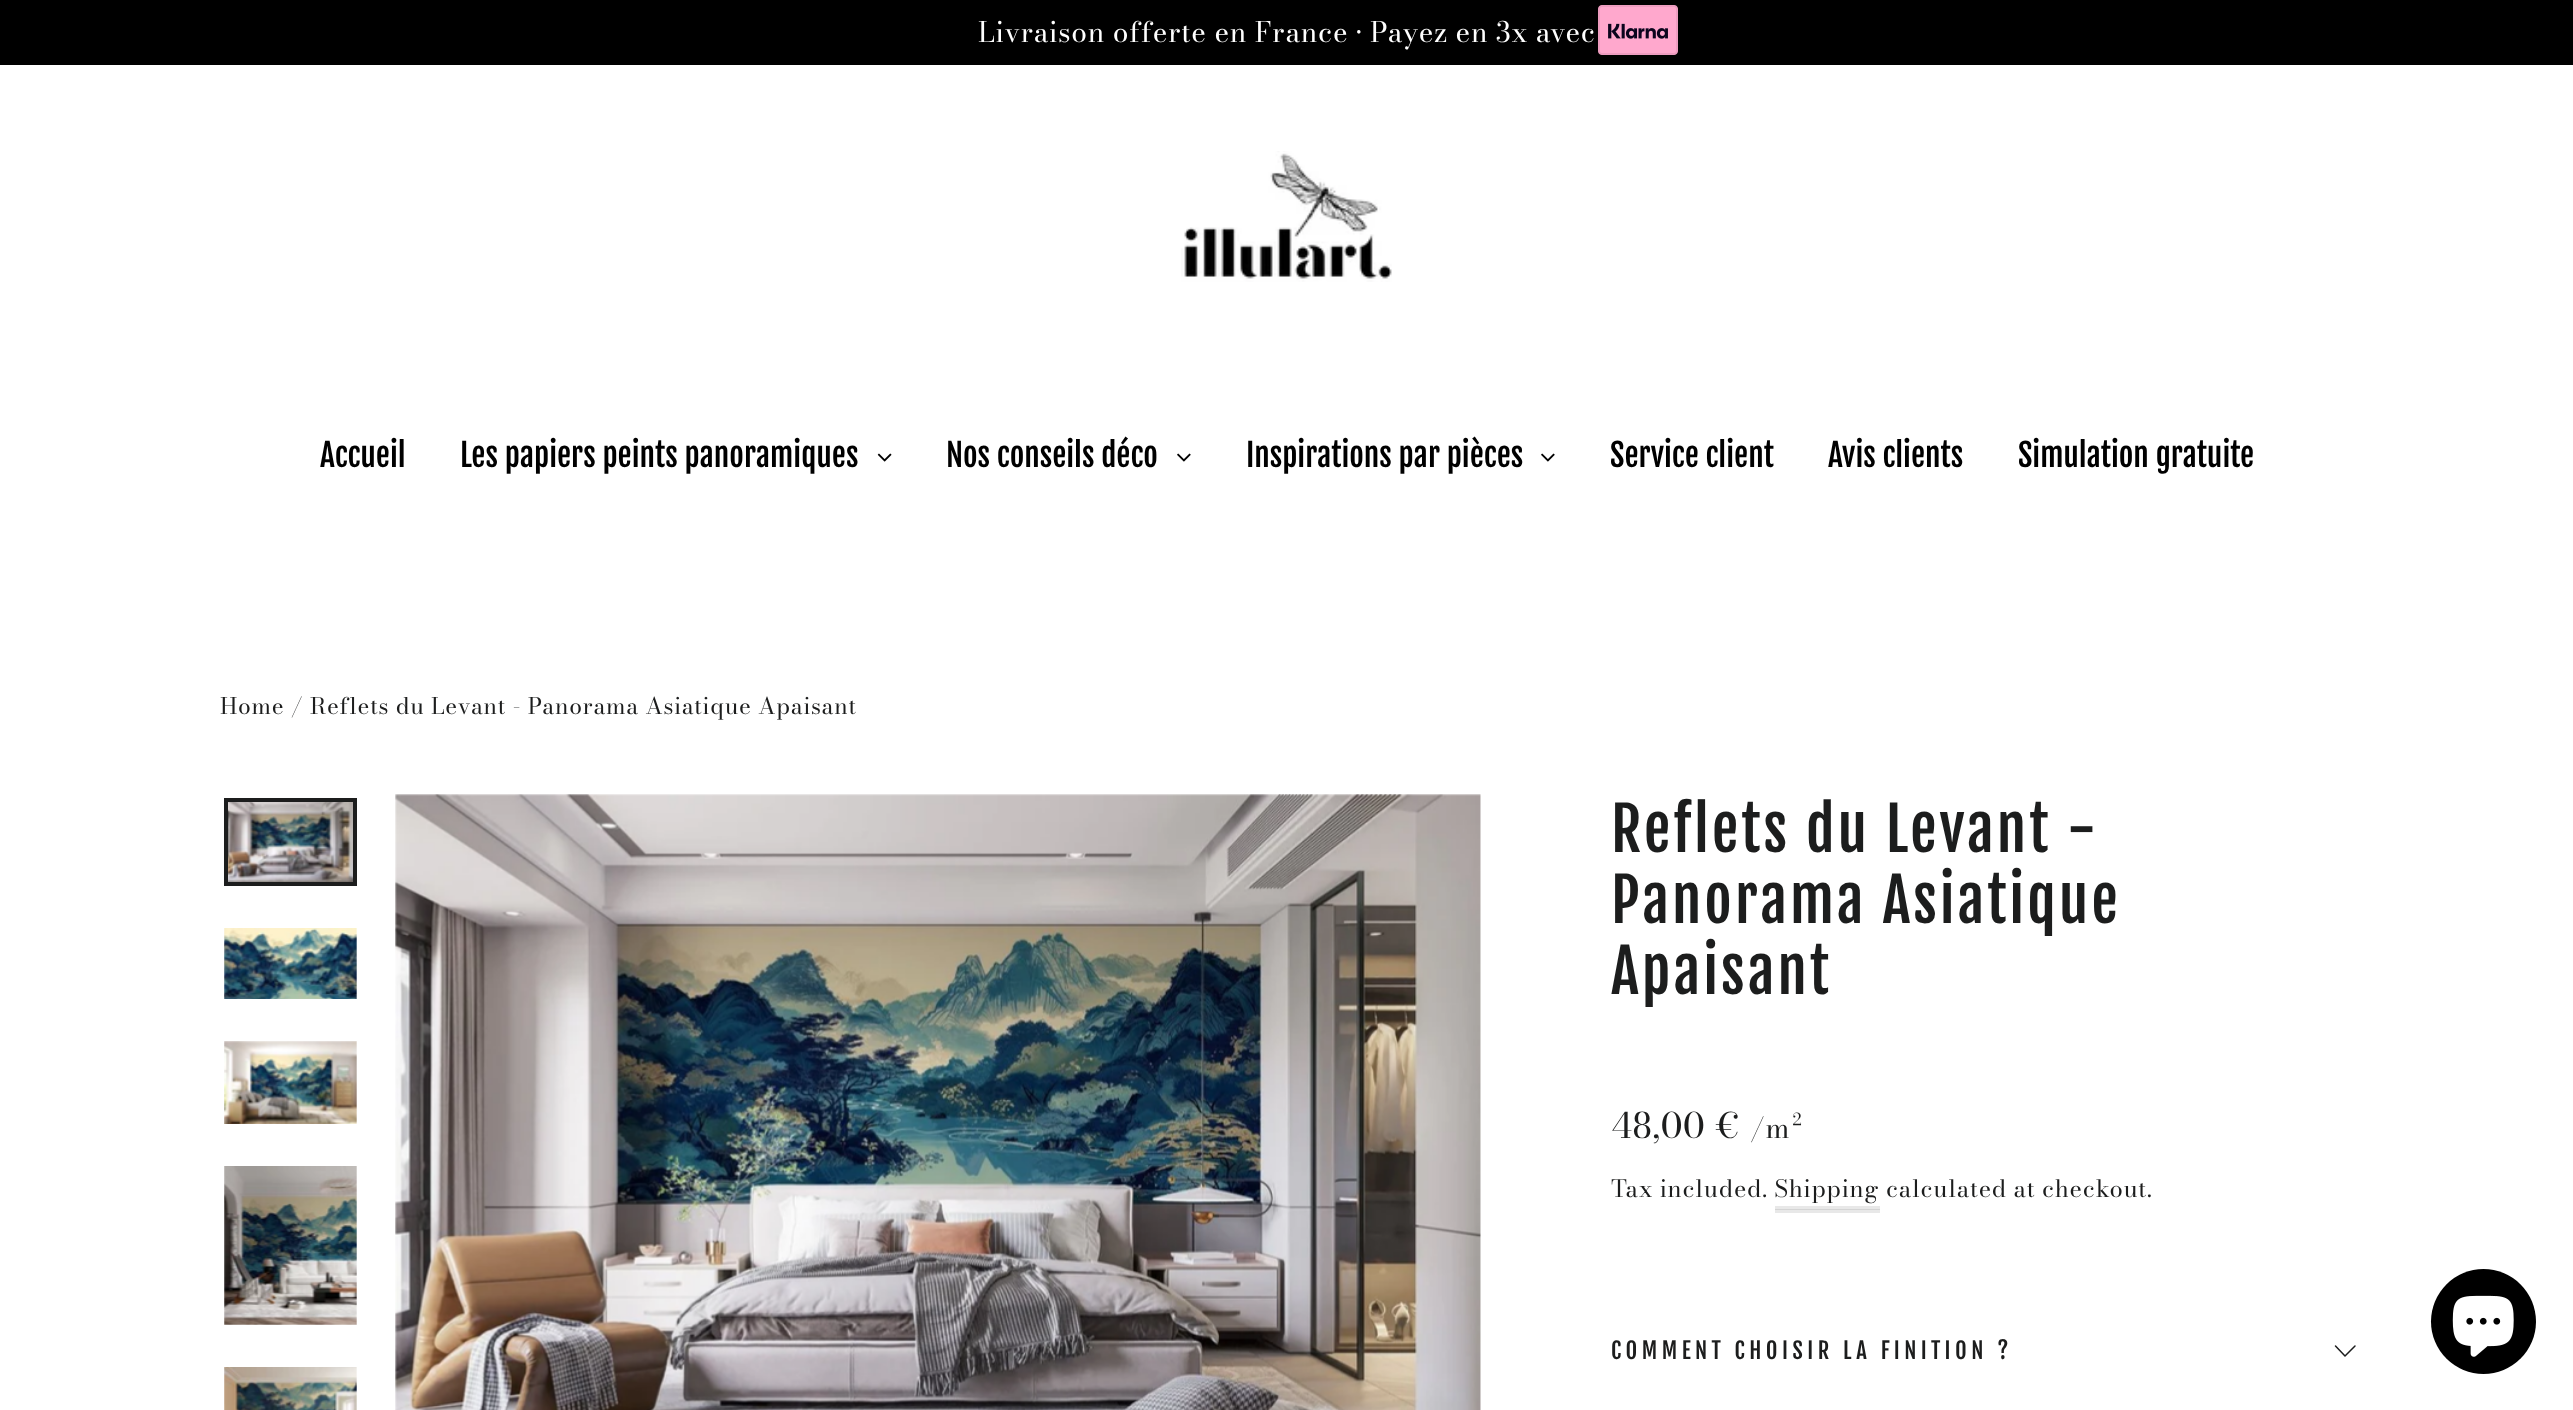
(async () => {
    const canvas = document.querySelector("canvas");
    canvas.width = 2573;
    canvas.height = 1410;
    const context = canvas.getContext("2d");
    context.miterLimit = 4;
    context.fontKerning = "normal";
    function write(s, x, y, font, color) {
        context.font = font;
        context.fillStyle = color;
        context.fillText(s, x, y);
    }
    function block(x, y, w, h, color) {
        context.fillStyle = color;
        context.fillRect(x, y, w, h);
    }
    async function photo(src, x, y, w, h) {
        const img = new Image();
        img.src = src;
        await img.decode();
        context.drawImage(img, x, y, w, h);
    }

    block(0, 0, 2573, 1410, "rgb(255, 255, 255)");
    block(1775, 1210, 105, 3, "rgb(232, 232, 232)");
    block(0, 0, 2573, 65, "rgb(0, 0, 0)");
    context.letterSpacing = "0.7px";
    write("Livraison offerte en France • Payez en 3x avec", 978, 42, "28px Bodoni Moda", "rgb(255, 255, 255)");
    await photo("media/1.png", 1598, 5, 80, 50);
    await photo("media/2.png", 1181, 151, 211, 131);
    context.letterSpacing = "0px";
    write("Accueil", 320, 467, "31.5px Fjalla One", "rgb(0, 0, 0)");
    write("Les papiers peints panoramiques", 460, 467, "31.5px Fjalla One", "rgb(0, 0, 0)");
    await photo("media/3.png", 877, 453, 15, 9);
    write("Nos conseils déco", 946, 467, "31.5px Fjalla One", "rgb(0, 0, 0)");
    await photo("media/4.png", 1177, 453, 14, 9);
    write("Inspirations par pièces", 1246, 467, "31.5px Fjalla One", "rgb(0, 0, 0)");
    await photo("media/4.png", 1541, 453, 14, 9);
    write("Service client", 1610, 467, "31.5px Fjalla One", "rgb(0, 0, 0)");
    write("Avis clients", 1828, 467, "31.5px Fjalla One", "rgb(0, 0, 0)");
    write("Simulation gratuite", 2018, 467, "31.5px Fjalla One", "rgb(0, 0, 0)");
    context.letterSpacing = "0.7px";
    write("Home / Reflets du Levant - Panorama Asiatique Apaisant", 220, 714, "22.75px Bodoni Moda", "rgb(28, 29, 29)");
    await photo("media/5.png", 228, 802, 125, 80);
    context.strokeStyle = "rgb(28, 29, 29)";
    context.lineWidth = 4;
    context.strokeRect(226, 800, 129, 84);
    await photo("media/6.png", 224, 928, 133, 71);
    await photo("media/7.png", 224, 1041, 133, 83);
    await photo("media/8.png", 224, 1166, 133, 159);
    await photo("media/9.png", 224, 1367, 133, 43);
    await photo("media/10.png", 395, 794, 1086, 616);
    context.letterSpacing = "3px";
    write("Reflets du Levant -", 1611, 852, "59.5px Fjalla One", "rgb(28, 29, 29)");
    write("Panorama Asiatique", 1611, 923, "59.5px Fjalla One", "rgb(28, 29, 29)");
    write("Apaisant", 1611, 994, "59.5px Fjalla One", "rgb(28, 29, 29)");
    context.letterSpacing = "0.7px";
    write("48,00 €", 1611, 1138, "35px Bodoni Moda", "rgb(28, 29, 29)");
    write("/m²", 1750, 1138, "28px Bodoni Moda", "rgb(28, 29, 29)");
    write("Tax included. Shipping", 1611, 1197, "23.75px Bodoni Moda", "rgb(28, 29, 29)");
    write("calculated at checkout.", 1886, 1197, "23.75px Bodoni Moda", "rgb(28, 29, 29)");
    block(1775, 1206, 105, 3, "rgb(232, 232, 232)");
    block(1775, 1209, 105, 1, "rgb(212, 212, 212)");
    context.letterSpacing = "4.5px";
    write("COMMENT CHOISIR LA FINITION ?", 1611, 1359, "22.4px Fjalla One", "rgb(28, 29, 29)");
    context.beginPath();
    context.moveTo(2335.5, 1346);
    context.lineTo(2345, 1356);
    context.lineTo(2355, 1346);
    context.lineWidth = 1.5;
    context.lineCap = "round";
    context.lineJoin = "round";
    context.stroke();
    context.fillStyle = "rgb(0, 0, 0)";
    context.beginPath();
    context.arc(2483.5, 1321.5, 52.5, 0, Math.PI * 2);
    context.fill();
    await photo("media/11.png", 2452, 1295, 62, 62);
})();
